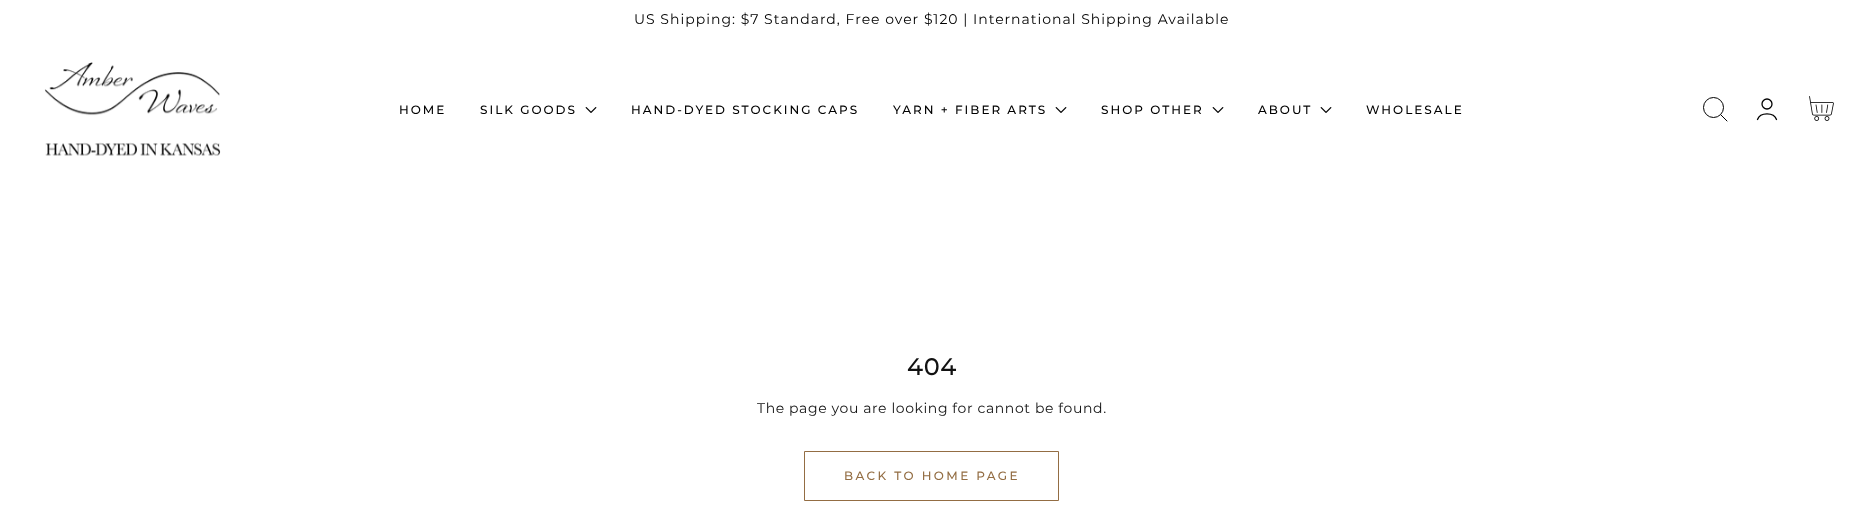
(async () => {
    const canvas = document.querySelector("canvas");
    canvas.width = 1863;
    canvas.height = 510;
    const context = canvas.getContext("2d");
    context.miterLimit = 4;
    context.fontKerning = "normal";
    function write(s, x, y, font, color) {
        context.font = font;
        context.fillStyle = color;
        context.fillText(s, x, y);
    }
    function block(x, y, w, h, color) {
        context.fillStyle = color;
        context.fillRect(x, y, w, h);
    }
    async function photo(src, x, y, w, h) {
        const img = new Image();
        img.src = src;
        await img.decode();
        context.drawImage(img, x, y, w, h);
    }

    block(0, 0, 1863, 510, "rgb(255, 255, 255)");
    context.letterSpacing = "1px";
    write("US Shipping: $7 Standard, Free over $120 | International Shipping Available", 634, 24, "14px Montserrat", "rgb(0, 0, 0)");
    await photo("media/1.png", 44, 62, 177, 94);
    context.letterSpacing = "2px";
    write("HOME", 399, 114, "500 12px Montserrat", "rgb(0, 0, 0)");
    write("SILK GOODS", 480, 114, "500 12px Montserrat", "rgb(0, 0, 0)");
    await photo("media/2.png", 585, 107, 12, 6);
    write("HAND-DYED STOCKING CAPS", 631, 114, "500 12px Montserrat", "rgb(0, 0, 0)");
    write("YARN + FIBER ARTS", 893, 114, "500 12px Montserrat", "rgb(0, 0, 0)");
    await photo("media/2.png", 1055, 107, 12, 6);
    write("SHOP OTHER", 1101, 114, "500 12px Montserrat", "rgb(0, 0, 0)");
    await photo("media/2.png", 1212, 107, 12, 6);
    write("ABOUT", 1258, 114, "500 12px Montserrat", "rgb(0, 0, 0)");
    await photo("media/2.png", 1320, 107, 12, 6);
    write("WHOLESALE", 1366, 114, "500 12px Montserrat", "rgb(0, 0, 0)");
    context.beginPath();
    context.arc(1713.5, 107.5, 10, 0, Math.PI * 2);
    context.strokeStyle = "rgb(0, 0, 0)";
    context.stroke();
    context.beginPath();
    context.moveTo(1721, 115);
    context.lineTo(1727, 121);
    context.lineCap = "round";
    context.stroke();
    context.beginPath();
    context.moveTo(1776.5, 119.5);
    context.bezierCurveTo(1774, 112, 1760, 112, 1757.5, 119.5);
    context.lineWidth = 1.3;
    context.stroke();
    context.beginPath();
    context.arc(1767, 104, 5, 0, Math.PI * 2);
    context.stroke();
    await photo("media/3.png", 1809, 96, 25, 25);
    context.letterSpacing = "0.6px";
    write("404", 907, 375, "500 24px Montserrat", "rgb(18, 18, 18)");
    write("The page you are looking for cannot be found.", 757, 413, "14px Montserrat", "rgb(18, 18, 18)");
    context.fillStyle = "rgb(147, 109, 67)";
    context.beginPath();
    context.moveTo(804, 451);
    context.lineTo(1059, 451);
    context.lineTo(1058, 452);
    context.lineTo(805, 452);
    context.closePath();
    context.fill();
    context.beginPath();
    context.moveTo(804, 501);
    context.lineTo(804, 451);
    context.lineTo(805, 452);
    context.lineTo(805, 500);
    context.closePath();
    context.fill();
    context.beginPath();
    context.moveTo(1059, 451);
    context.lineTo(1059, 501);
    context.lineTo(1058, 500);
    context.lineTo(1058, 452);
    context.closePath();
    context.fill();
    context.beginPath();
    context.moveTo(1059, 501);
    context.lineTo(804, 501);
    context.lineTo(805, 500);
    context.lineTo(1058, 500);
    context.closePath();
    context.fill();
    context.letterSpacing = "2.4px";
    write("BACK TO HOME PAGE", 844, 480, "500 12px Montserrat", "rgb(147, 109, 67)");
})();
